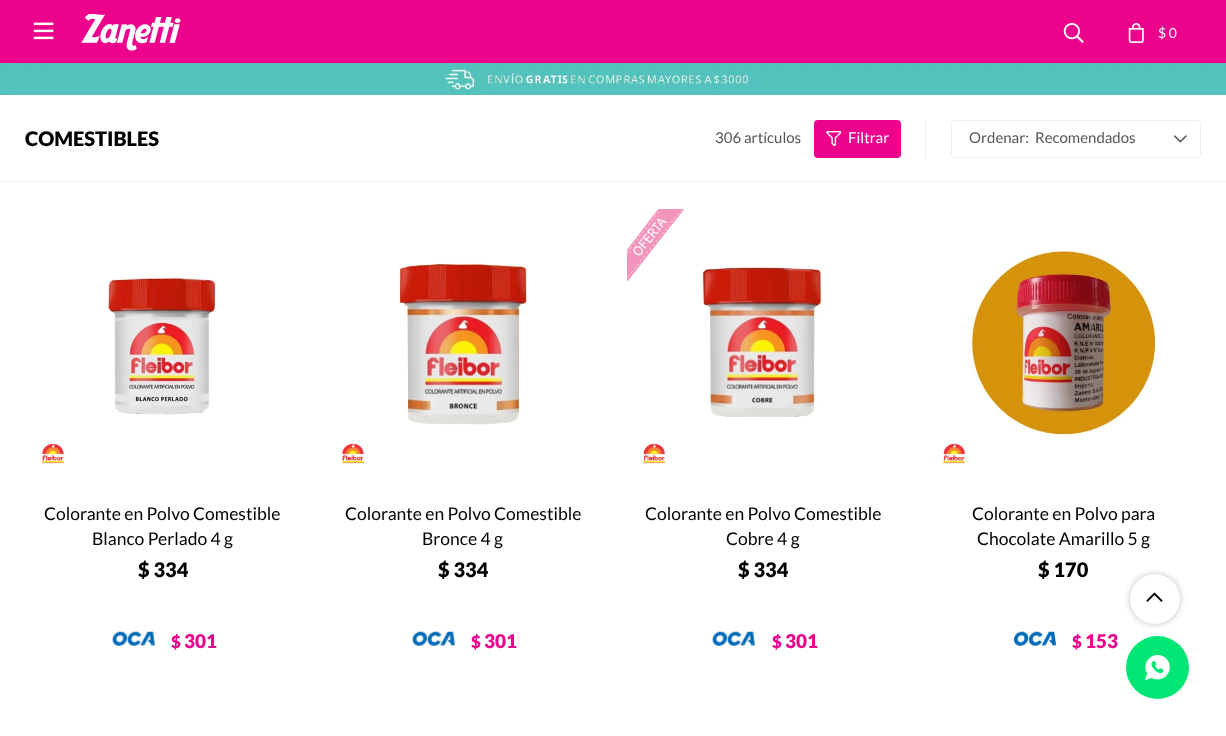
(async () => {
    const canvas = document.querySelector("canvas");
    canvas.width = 1226;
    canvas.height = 736;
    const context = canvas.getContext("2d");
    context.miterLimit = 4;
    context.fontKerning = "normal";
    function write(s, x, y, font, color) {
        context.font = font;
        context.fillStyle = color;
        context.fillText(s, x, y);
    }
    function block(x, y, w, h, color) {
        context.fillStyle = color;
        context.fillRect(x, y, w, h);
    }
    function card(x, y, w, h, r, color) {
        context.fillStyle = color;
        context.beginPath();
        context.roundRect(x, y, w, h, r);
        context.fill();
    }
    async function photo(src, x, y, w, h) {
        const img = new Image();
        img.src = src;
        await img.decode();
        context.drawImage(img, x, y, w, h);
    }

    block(0, 0, 1226, 736, "rgb(255, 255, 255)");
    block(0, 0, 1226, 63, "rgb(237, 2, 140)");
    await photo("media/1.png", 33, 22, 21, 18);
    await photo("media/2.png", 81, 14, 100, 37);
    await photo("media/3.png", 1063, 23, 21, 20);
    await photo("media/4.png", 1128, 23, 16, 20);
    write("$ 0", 1158, 38, "14px Lato", "rgb(255, 255, 255)");
    await photo("media/5.png", 0, 63, 1226, 32);
    write("COMESTIBLES", 25, 146, "900 20px Lato", "rgb(0, 0, 0)");
    write("306 artículos", 715, 143, "15px Lato", "rgb(85, 85, 85)");
    card(814, 120, 87, 38, 4, "rgb(237, 2, 140)");
    await photo("media/6.png", 826, 131, 16, 15);
    write("Filtrar", 848, 143, "15px Lato", "rgb(255, 255, 255)");
    block(925, 120, 1, 38, "rgb(237, 237, 237)");
    await photo("media/7.png", 1173, 135, 14, 8);
    context.beginPath();
    context.roundRect(951.5, 120.5, 249, 37, 3.5);
    context.strokeStyle = "rgb(237, 237, 237)";
    context.stroke();
    write("Ordenar:", 969, 143, "15px Lato", "rgb(85, 85, 85)");
    write("Recomendados", 1035, 143, "15px Lato", "rgb(85, 85, 85)");
    block(0, 181, 1226, 1, "rgb(237, 237, 237)");
    await photo("media/8.png", 108, 277, 108, 138);
    await photo("media/9.png", 42, 443, 22, 21);
    write("Colorante en Polvo Comestible", 44, 520, "17.5px Lato", "rgb(0, 0, 0)");
    write("Blanco Perlado 4 g", 92, 545, "17.5px Lato", "rgb(0, 0, 0)");
    write("$ 334", 138, 577, "900 20px Lato", "rgb(0, 0, 0)");
    await photo("media/10.png", 112, 631, 43, 15);
    write("$", 171, 648, "900 17px Lato", "rgb(237, 2, 140)");
    write("301", 184, 648, "900 19px Lato", "rgb(237, 2, 140)");
    await photo("media/11.png", 399, 263, 129, 162);
    await photo("media/12.png", 342, 443, 22, 21);
    write("Colorante en Polvo Comestible", 345, 520, "17.5px Lato", "rgb(0, 0, 0)");
    write("Bronce 4 g", 422, 545, "17.5px Lato", "rgb(0, 0, 0)");
    write("$ 334", 438, 577, "900 20px Lato", "rgb(0, 0, 0)");
    await photo("media/10.png", 412, 631, 43, 15);
    write("$", 471, 648, "900 17px Lato", "rgb(237, 2, 140)");
    write("301", 484, 648, "900 19px Lato", "rgb(237, 2, 140)");
    await photo("media/13.png", 627, 209, 58, 72);
    await photo("media/14.png", 702, 267, 120, 150);
    await photo("media/15.png", 643, 443, 22, 21);
    write("Colorante en Polvo Comestible", 645, 520, "17.5px Lato", "rgb(0, 0, 0)");
    write("Cobre 4 g", 726, 545, "17.5px Lato", "rgb(0, 0, 0)");
    write("$ 334", 738, 577, "900 20px Lato", "rgb(0, 0, 0)");
    await photo("media/10.png", 712, 631, 43, 15);
    write("$", 772, 648, "900 17px Lato", "rgb(237, 2, 140)");
    write("301", 785, 648, "900 19px Lato", "rgb(237, 2, 140)");
    await photo("media/16.png", 971, 250, 185, 187);
    await photo("media/17.png", 943, 443, 22, 21);
    write("Colorante en Polvo para", 972, 520, "17.5px Lato", "rgb(0, 0, 0)");
    write("Chocolate Amarillo 5 g", 977, 545, "17.5px Lato", "rgb(0, 0, 0)");
    write("$ 170", 1038, 577, "900 20px Lato", "rgb(0, 0, 0)");
    await photo("media/18.png", 1013, 631, 43, 15);
    write("$", 1072, 648, "900 17px Lato", "rgb(237, 2, 140)");
    write("153", 1085, 648, "900 19px Lato", "rgb(237, 2, 140)");
    context.fillStyle = "rgba(0, 0, 0, 0.25)";
    context.filter = "blur(3px)";
    context.beginPath();
    context.roundRect(1130, 574, 50, 50, 25);
    context.fill();
    context.filter = "none";
    context.fillStyle = "rgb(255, 255, 255)";
    context.beginPath();
    context.arc(1155, 599, 25, 0, Math.PI * 2);
    context.fill();
    await photo("media/19.png", 1146, 592, 17, 10);
    context.fillStyle = "rgb(1, 230, 117)";
    context.beginPath();
    context.arc(1157.5, 667.5, 31.5, 0, Math.PI * 2);
    context.fill();
    await photo("media/20.png", 1145, 655, 25, 25);
})();
